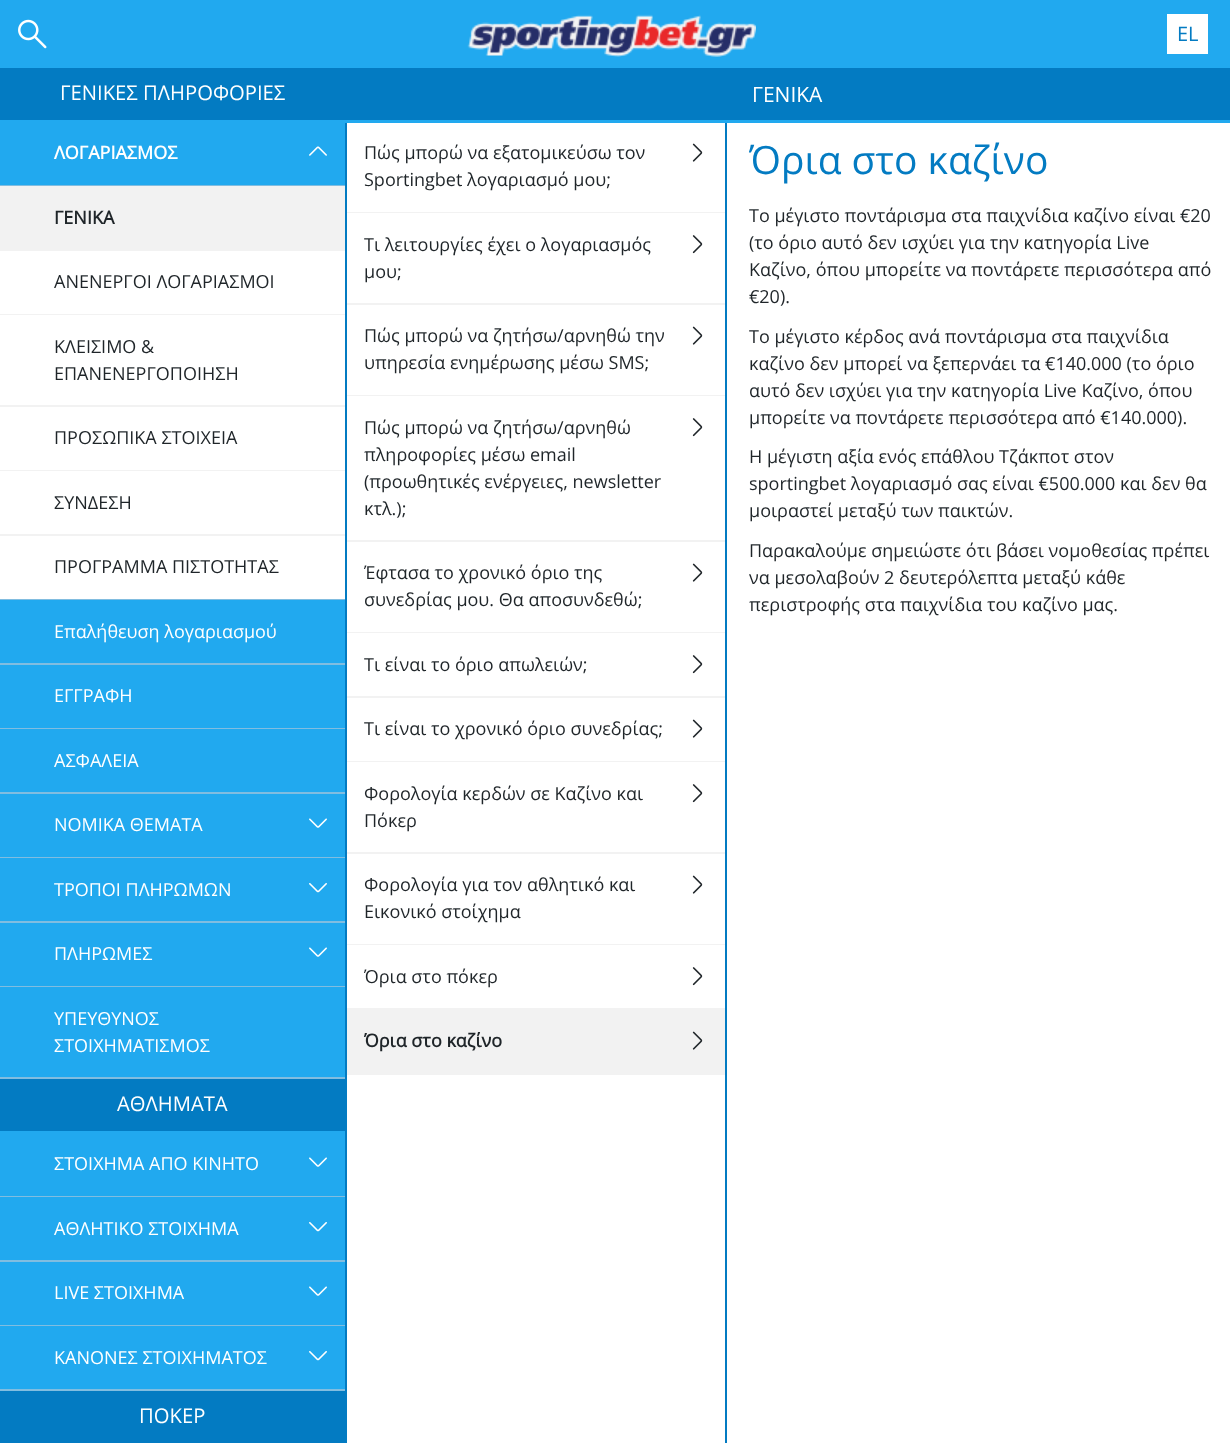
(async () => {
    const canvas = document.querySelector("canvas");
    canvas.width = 1230;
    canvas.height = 1443;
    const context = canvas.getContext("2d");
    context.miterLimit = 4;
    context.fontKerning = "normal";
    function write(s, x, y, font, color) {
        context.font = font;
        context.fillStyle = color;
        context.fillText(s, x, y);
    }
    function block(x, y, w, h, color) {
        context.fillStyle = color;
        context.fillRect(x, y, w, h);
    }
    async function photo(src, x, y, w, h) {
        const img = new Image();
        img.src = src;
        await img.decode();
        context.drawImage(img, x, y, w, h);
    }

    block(0, 0, 1230, 1443, "rgb(255, 255, 255)");
    block(0, 0, 1230, 68, "rgb(33, 169, 239)");
    await photo("media/1.png", 18, 19, 29, 30);
    await photo("media/2.png", 467, 14, 289, 43);
    block(1167, 14, 41, 40, "rgb(255, 255, 255)");
    write("EL", 1177, 41, "20px Open Sans", "rgb(3, 123, 194)");
    block(0, 120, 345, 1205, "rgb(33, 169, 239)");
    block(0, 68, 1230, 52, "rgb(3, 123, 194)");
    write("ΓΕΝΙΚΕΣ ΠΛΗΡΟΦΟΡΙΕΣ", 60, 100, "20.25px Open Sans", "rgb(255, 255, 255)");
    block(0, 599, 345, 1, "rgb(129, 189, 224)");
    write("ΛΟΓΑΡΙΑΣΜΟΣ", 54, 159, "bold 18px Open Sans", "rgb(255, 255, 255)");
    await photo("media/3.png", 309, 146, 18, 10);
    block(0, 185, 345, 1, "rgb(129, 189, 224)");
    block(0, 186, 345, 65, "rgb(242, 242, 242)");
    write("ΓΕΝΙΚΑ", 54, 224, "bold 18px Open Sans", "rgb(31, 37, 41)");
    block(0, 314, 345, 1, "rgb(242, 242, 242)");
    block(0, 251, 345, 63, "rgb(255, 255, 255)");
    write("ΑΝΕΝΕΡΓΟΙ ΛΟΓΑΡΙΑΣΜΟΙ", 54, 288, "18px Open Sans", "rgb(31, 37, 41)");
    block(0, 405, 345, 2, "rgb(242, 242, 242)");
    block(0, 315, 345, 90, "rgb(255, 255, 255)");
    write("ΚΛΕΙΣΙΜΟ &", 54, 353, "18px Open Sans", "rgb(31, 37, 41)");
    write("ΕΠΑΝΕΝΕΡΓΟΠΟΙΗΣΗ", 54, 380, "18px Open Sans", "rgb(31, 37, 41)");
    block(0, 470, 345, 1, "rgb(242, 242, 242)");
    block(0, 407, 345, 63, "rgb(255, 255, 255)");
    write("ΠΡΟΣΩΠΙΚΑ ΣΤΟΙΧΕΙΑ", 54, 444, "18px Open Sans", "rgb(31, 37, 41)");
    block(0, 534, 345, 2, "rgb(242, 242, 242)");
    block(0, 471, 345, 63, "rgb(255, 255, 255)");
    write("ΣΥΝΔΕΣΗ", 54, 509, "18px Open Sans", "rgb(31, 37, 41)");
    block(0, 536, 345, 63, "rgb(255, 255, 255)");
    write("ΠΡΟΓΡΑΜΜΑ ΠΙΣΤΟΤΗΤΑΣ", 54, 573, "18px Open Sans", "rgb(31, 37, 41)");
    block(0, 663, 345, 2, "rgb(129, 189, 224)");
    write("Επαλήθευση λογαριασμού", 54, 638, "18px Open Sans", "rgb(255, 255, 255)");
    block(0, 728, 345, 1, "rgb(129, 189, 224)");
    write("ΕΓΓΡΑΦΗ", 54, 702, "18px Open Sans", "rgb(255, 255, 255)");
    block(0, 792, 345, 2, "rgb(129, 189, 224)");
    write("ΑΣΦΑΛΕΙΑ", 54, 767, "18px Open Sans", "rgb(255, 255, 255)");
    block(0, 857, 345, 1, "rgb(129, 189, 224)");
    write("ΝΟΜΙΚΑ ΘΕΜΑΤΑ", 54, 831, "18px Open Sans", "rgb(255, 255, 255)");
    await photo("media/4.png", 309, 818, 18, 10);
    block(0, 921, 345, 2, "rgb(129, 189, 224)");
    write("ΤΡΟΠΟΙ ΠΛΗΡΩΜΩΝ", 54, 896, "18px Open Sans", "rgb(255, 255, 255)");
    await photo("media/5.png", 309, 883, 18, 10);
    block(0, 986, 345, 1, "rgb(129, 189, 224)");
    write("ΠΛΗΡΩΜΕΣ", 54, 960, "18px Open Sans", "rgb(255, 255, 255)");
    await photo("media/4.png", 309, 947, 18, 10);
    block(0, 1077, 345, 2, "rgb(129, 189, 224)");
    write("ΥΠΕΥΘΥΝΟΣ", 54, 1025, "18px Open Sans", "rgb(255, 255, 255)");
    write("ΣΤΟΙΧΗΜΑΤΙΣΜΟΣ", 54, 1052, "18px Open Sans", "rgb(255, 255, 255)");
    block(0, 1079, 345, 52, "rgb(3, 123, 194)");
    write("ΑΘΛΗΜΑΤΑ", 117, 1111, "20.25px Open Sans", "rgb(255, 255, 255)");
    block(0, 1196, 345, 1, "rgb(129, 189, 224)");
    write("ΣΤΟΙΧΗΜΑ ΑΠΟ ΚΙΝΗΤΟ", 54, 1170, "18px Open Sans", "rgb(255, 255, 255)");
    await photo("media/4.png", 309, 1157, 18, 10);
    block(0, 1260, 345, 2, "rgb(129, 189, 224)");
    write("ΑΘΛΗΤΙΚΟ ΣΤΟΙΧΗΜΑ", 54, 1235, "18px Open Sans", "rgb(255, 255, 255)");
    await photo("media/5.png", 309, 1222, 18, 10);
    block(0, 1325, 345, 1, "rgb(129, 189, 224)");
    write("LIVE ΣΤΟΙΧΗΜΑ", 54, 1299, "18px Open Sans", "rgb(255, 255, 255)");
    await photo("media/4.png", 309, 1286, 18, 10);
    block(0, 1326, 345, 63, "rgb(33, 169, 239)");
    block(0, 1389, 345, 2, "rgb(129, 189, 224)");
    write("ΚΑΝΟΝΕΣ ΣΤΟΙΧΗΜΑΤΟΣ", 54, 1364, "18px Open Sans", "rgb(255, 255, 255)");
    await photo("media/5.png", 309, 1351, 18, 10);
    block(0, 1391, 345, 52, "rgb(3, 123, 194)");
    write("ΠΟΚΕΡ", 139, 1423, "20.25px Open Sans", "rgb(255, 255, 255)");
    block(725, 122, 2, 1321, "rgb(3, 123, 194)");
    block(345, 120, 885, 3, "rgb(33, 169, 239)");
    write("ΓΕΝΙΚΑ", 752, 102, "21px Open Sans", "rgb(255, 255, 255)");
    block(345, 123, 2, 1320, "rgb(3, 123, 194)");
    block(347, 212, 378, 1, "rgb(242, 242, 242)");
    write("Πώς μπορώ να εξατομικεύσω τον", 364, 159, "18px Open Sans", "rgb(31, 37, 41)");
    await photo("media/6.png", 692, 143, 11, 19);
    write("Sportingbet λογαριασμό μου;", 364, 186, "18px Open Sans", "rgb(31, 37, 41)");
    block(347, 303, 378, 2, "rgb(242, 242, 242)");
    write("Τι λειτουργίες έχει ο λογαριασμός", 364, 251, "18px Open Sans", "rgb(31, 37, 41)");
    await photo("media/7.png", 692, 235, 11, 19);
    write("μου;", 364, 278, "18px Open Sans", "rgb(31, 37, 41)");
    block(347, 395, 378, 1, "rgb(242, 242, 242)");
    write("Πώς μπορώ να ζητήσω/αρνηθώ την", 364, 342, "18px Open Sans", "rgb(31, 37, 41)");
    await photo("media/6.png", 692, 326, 11, 19);
    write("υπηρεσία ενημέρωσης μέσω SMS;", 364, 369, "18px Open Sans", "rgb(31, 37, 41)");
    block(347, 540, 378, 2, "rgb(242, 242, 242)");
    write("Πώς μπορώ να ζητήσω/αρνηθώ", 364, 434, "18px Open Sans", "rgb(31, 37, 41)");
    await photo("media/7.png", 692, 418, 11, 19);
    write("πληροφορίες μέσω email", 364, 461, "18px Open Sans", "rgb(31, 37, 41)");
    write("(προωθητικές ενέργειες, newsletter", 364, 488, "18px Open Sans", "rgb(31, 37, 41)");
    write("κτλ.);", 364, 515, "18px Open Sans", "rgb(31, 37, 41)");
    block(347, 632, 378, 1, "rgb(242, 242, 242)");
    write("Έφτασα το χρονικό όριο της", 364, 579, "18px Open Sans", "rgb(31, 37, 41)");
    await photo("media/6.png", 692, 563, 11, 19);
    write("συνεδρίας μου. Θα αποσυνδεθώ;", 364, 606, "18px Open Sans", "rgb(31, 37, 41)");
    block(347, 696, 378, 2, "rgb(242, 242, 242)");
    write("Τι είναι το όριο απωλειών;", 364, 671, "18px Open Sans", "rgb(31, 37, 41)");
    await photo("media/7.png", 692, 655, 11, 19);
    block(347, 761, 378, 1, "rgb(242, 242, 242)");
    write("Τι είναι το χρονικό όριο συνεδρίας;", 364, 735, "18px Open Sans", "rgb(31, 37, 41)");
    await photo("media/6.png", 692, 719, 11, 19);
    block(347, 852, 378, 2, "rgb(242, 242, 242)");
    write("Φορολογία κερδών σε Kαζίνο και", 364, 800, "18px Open Sans", "rgb(31, 37, 41)");
    await photo("media/7.png", 692, 784, 11, 19);
    write("Πόκερ", 364, 827, "18px Open Sans", "rgb(31, 37, 41)");
    block(347, 944, 378, 1, "rgb(242, 242, 242)");
    write("Φορολογία για τον αθλητικό και", 364, 891, "18px Open Sans", "rgb(31, 37, 41)");
    await photo("media/6.png", 692, 875, 11, 19);
    write("Εικονικό στοίχημα", 364, 918, "18px Open Sans", "rgb(31, 37, 41)");
    block(347, 1008, 378, 67, "rgb(242, 242, 242)");
    write("Όρια στο πόκερ", 364, 983, "18px Open Sans", "rgb(31, 37, 41)");
    await photo("media/7.png", 692, 967, 11, 19);
    write("Όρια στο καζίνο", 364, 1047, "bold 18px Open Sans", "rgb(31, 37, 41)");
    await photo("media/8.png", 692, 1031, 11, 19);
    write("Όρια στο καζίνο", 749, 174, "39px Open Sans", "rgb(3, 123, 194)");
    write("Το μέγιστο ποντάρισμα στα παιχνίδια καζίνο είναι €20", 749, 222, "18px Open Sans", "rgb(31, 37, 41)");
    write("(το όριο αυτό δεν ισχύει για την κατηγορία Live", 749, 249, "18px Open Sans", "rgb(31, 37, 41)");
    write("Καζίνο, όπου μπορείτε να ποντάρετε περισσότερα από", 749, 276, "18px Open Sans", "rgb(31, 37, 41)");
    write("€20).", 749, 303, "18px Open Sans", "rgb(31, 37, 41)");
    write("Το μέγιστο κέρδος ανά ποντάρισμα στα παιχνίδια", 749, 343, "18px Open Sans", "rgb(31, 37, 41)");
    write("καζίνο δεν μπορεί να ξεπερνάει τα €140.000 (το όριο", 749, 370, "18px Open Sans", "rgb(31, 37, 41)");
    write("αυτό δεν ισχύει για την κατηγορία Live Καζίνο, όπου", 749, 397, "18px Open Sans", "rgb(31, 37, 41)");
    write("μπορείτε να ποντάρετε περισσότερα από €140.000).", 749, 424, "18px Open Sans", "rgb(31, 37, 41)");
    write("Η μέγιστη αξία ενός επάθλου Τζάκποτ στον", 749, 463, "18px Open Sans", "rgb(31, 37, 41)");
    write("sportingbet λογαριασμό σας είναι €500.000 και δεν θα", 749, 490, "18px Open Sans", "rgb(31, 37, 41)");
    write("μοιραστεί μεταξύ των παικτών.", 749, 517, "18px Open Sans", "rgb(31, 37, 41)");
    write("Παρακαλούμε σημειώστε ότι βάσει νομοθεσίας πρέπει", 749, 557, "18px Open Sans", "rgb(31, 37, 41)");
    write("να μεσολαβούν 2 δευτερόλεπτα μεταξύ κάθε", 749, 584, "18px Open Sans", "rgb(31, 37, 41)");
    write("περιστροφής στα παιχνίδια του καζίνο μας.", 749, 611, "18px Open Sans", "rgb(31, 37, 41)");
})();
